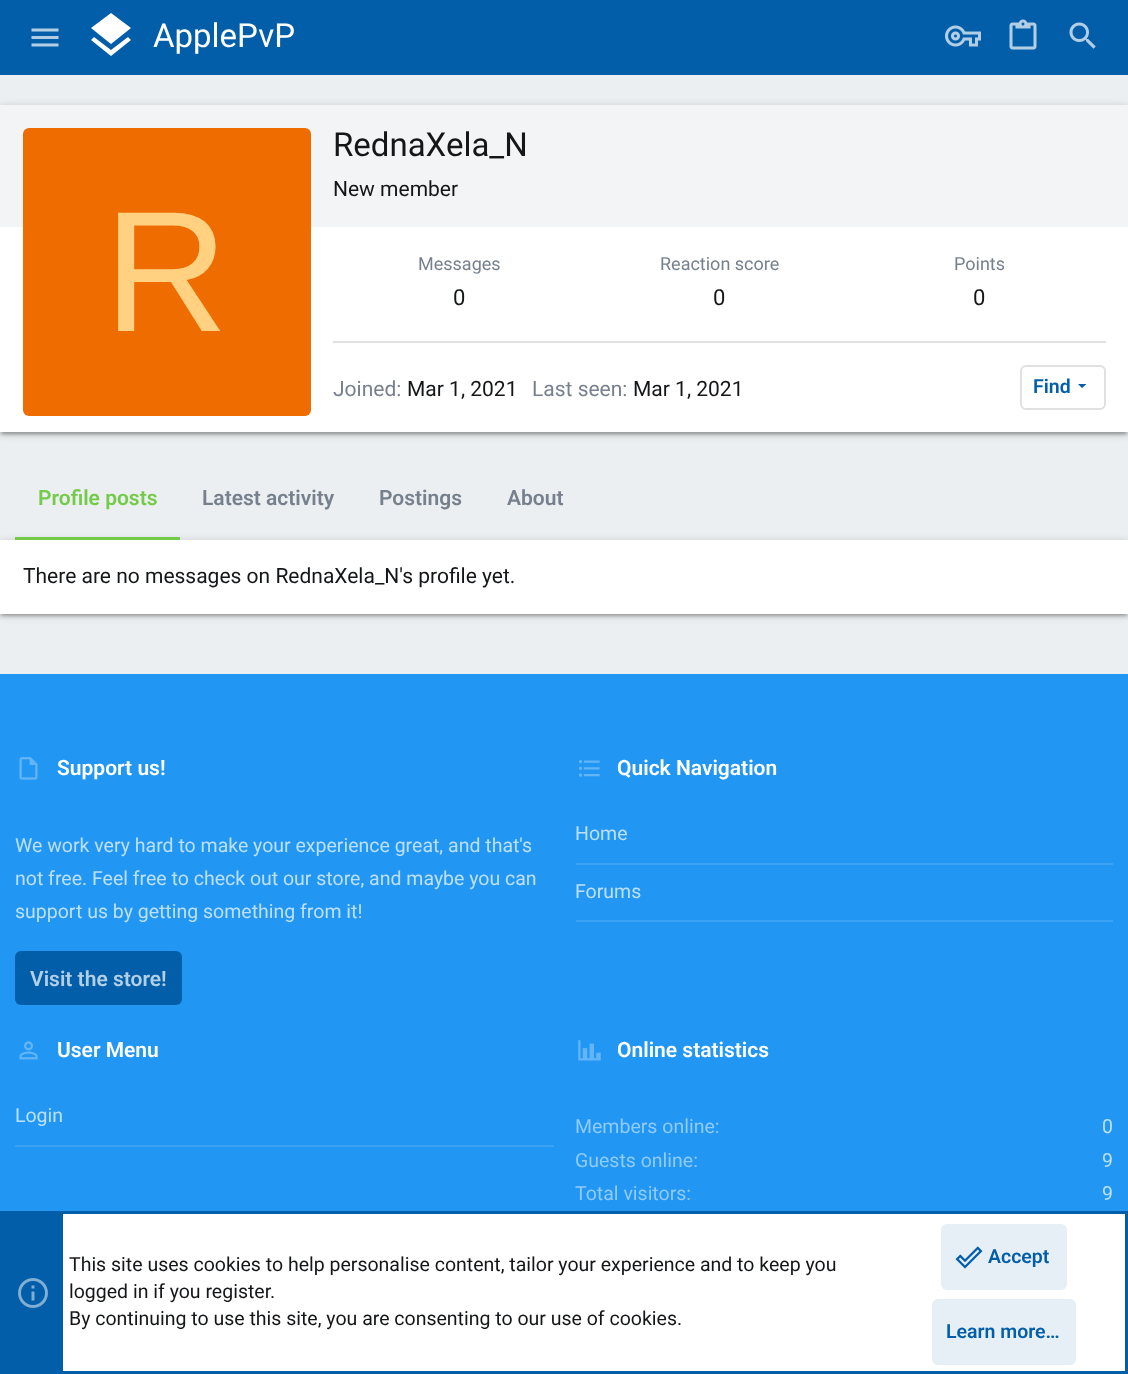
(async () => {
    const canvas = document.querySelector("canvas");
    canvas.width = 1128;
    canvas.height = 1374;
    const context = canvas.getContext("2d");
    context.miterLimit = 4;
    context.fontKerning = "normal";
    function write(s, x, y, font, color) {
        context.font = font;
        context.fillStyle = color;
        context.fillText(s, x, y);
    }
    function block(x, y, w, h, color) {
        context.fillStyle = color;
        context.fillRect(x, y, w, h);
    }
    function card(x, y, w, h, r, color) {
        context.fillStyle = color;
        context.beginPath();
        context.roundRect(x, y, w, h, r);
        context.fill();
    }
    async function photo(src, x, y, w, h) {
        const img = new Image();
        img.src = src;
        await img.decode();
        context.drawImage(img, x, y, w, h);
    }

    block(0, 0, 1128, 1374, "rgb(236, 239, 241)");
    block(0, 0, 1128, 75, "rgb(3, 94, 169)");
    await photo("media/1.png", 31, 28, 28, 19);
    context.fillStyle = "rgb(255, 255, 255)";
    context.beginPath();
    context.moveTo(111, 44);
    context.lineTo(131, 28);
    context.lineTo(111, 13);
    context.lineTo(91, 28);
    context.closePath();
    context.moveTo(111, 50);
    context.lineTo(94, 37);
    context.lineTo(91, 40);
    context.lineTo(111, 56);
    context.lineTo(131, 40);
    context.lineTo(128, 37);
    context.closePath();
    context.fill();
    write("ApplePvP", 153, 47, "33px Roboto", "rgb(255, 255, 255)");
    await photo("media/2.png", 945, 25, 36, 22);
    await photo("media/3.png", 1009, 19, 28, 31);
    await photo("media/4.png", 1069, 22, 27, 27);
    context.fillStyle = "rgba(0, 0, 0, 0.2)";
    context.filter = "blur(4px)";
    context.beginPath();
    context.rect(0, 107, 1128, 327);
    context.fill();
    context.filter = "none";
    context.fillStyle = "rgba(0, 0, 0, 0.12)";
    context.filter = "blur(1px)";
    context.beginPath();
    context.rect(3, 113, 1122, 321);
    context.fill();
    context.filter = "none";
    context.fillStyle = "rgba(0, 0, 0, 0.14)";
    context.filter = "blur(1.5px)";
    context.beginPath();
    context.rect(0, 108, 1128, 327);
    context.fill();
    context.filter = "none";
    block(0, 227, 1128, 205, "rgb(255, 255, 255)");
    block(0, 105, 1128, 122, "rgb(243, 244, 245)");
    write("RednaXela_N", 333, 156, "33px Roboto", "rgb(20, 22, 24)");
    write("New member", 333, 196, "21px Roboto", "rgb(20, 22, 24)");
    card(23, 128, 288, 288, 6, "rgb(239, 108, 0)");
    write("R", 104, 331, "172px Liberation Sans", "rgb(255, 209, 128)");
    write("Messages", 418, 270, "18px Roboto", "rgb(118, 129, 141)");
    write("0", 453, 305, "22px Roboto", "rgb(20, 22, 24)");
    write("Reaction score", 660, 270, "18px Roboto", "rgb(118, 129, 141)");
    write("0", 713, 305, "22px Roboto", "rgb(20, 22, 24)");
    write("Points", 954, 270, "18px Roboto", "rgb(118, 129, 141)");
    write("0", 973, 305, "22px Roboto", "rgb(20, 22, 24)");
    block(333, 341, 773, 2, "rgb(224, 224, 224)");
    write("Joined:", 333, 396, "21px Roboto", "rgb(118, 129, 141)");
    write("Mar 1, 2021", 407, 396, "21px Roboto", "rgb(20, 22, 24)");
    write("Last seen:", 532, 396, "21px Roboto", "rgb(118, 129, 141)");
    write("Mar 1, 2021", 633, 396, "21px Roboto", "rgb(20, 22, 24)");
    context.beginPath();
    context.roundRect(1021, 366, 84, 43, 5);
    context.strokeStyle = "rgb(224, 224, 224)";
    context.lineWidth = 2;
    context.stroke();
    write("Find", 1033, 393, "600 19.5px Roboto", "rgb(3, 94, 169)");
    context.beginPath();
    context.moveTo(1078, 384);
    context.lineTo(1082, 388);
    context.lineTo(1086.5, 384);
    context.closePath();
    context.fill();
    context.fillStyle = "rgba(0, 0, 0, 0.2)";
    context.filter = "blur(4px)";
    context.beginPath();
    context.rect(0, 542, 1128, 73);
    context.fill();
    context.filter = "none";
    context.fillStyle = "rgba(0, 0, 0, 0.14)";
    context.filter = "blur(1.5px)";
    context.beginPath();
    context.rect(0, 543, 1128, 74);
    context.fill();
    context.filter = "none";
    block(15, 537, 165, 3, "rgb(116, 203, 73)");
    write("Profile posts", 38, 505, "600 21px Roboto", "rgb(116, 203, 73)");
    write("Latest activity", 202, 505, "600 21px Roboto", "rgb(118, 129, 141)");
    write("Postings", 379, 505, "600 21px Roboto", "rgb(118, 129, 141)");
    write("About", 507, 505, "600 21px Roboto", "rgb(118, 129, 141)");
    context.fillStyle = "rgba(0, 0, 0, 0.12)";
    context.filter = "blur(1px)";
    context.beginPath();
    context.rect(3, 548, 1122, 67);
    context.fill();
    context.filter = "none";
    block(0, 540, 1128, 74, "rgb(255, 255, 255)");
    write("There are no messages on RednaXela_N's profile yet.", 23, 583, "21px Roboto", "rgb(20, 22, 24)");
    block(0, 674, 1128, 537, "rgb(33, 150, 243)");
    await photo("media/5.png", 19, 757, 19, 23);
    write("Support us!", 57, 775, "600 21px Roboto", "rgb(255, 255, 255)");
    write("We work very hard to make your experience great, and that's", 15, 852, "19.5px Roboto", "rgb(188, 224, 251)");
    write("not free. Feel free to check out our store, and maybe you can", 15, 885, "19.5px Roboto", "rgb(188, 224, 251)");
    write("support us by getting something from it!", 15, 918, "19.5px Roboto", "rgb(188, 224, 251)");
    card(15, 951, 167, 54, 6, "rgb(3, 94, 169)");
    write("Visit the store!", 30, 986, "600 21px Roboto", "rgb(179, 207, 229)");
    await photo("media/6.png", 578, 760, 22, 17);
    write("Quick Navigation", 617, 775, "600 21px Roboto", "rgb(255, 255, 255)");
    block(576, 863, 537, 2, "rgb(60, 163, 244)");
    write("Home", 575, 840, "19.5px Roboto", "rgb(188, 224, 251)");
    block(576, 920, 537, 2, "rgb(60, 163, 244)");
    write("Forums", 575, 898, "19.5px Roboto", "rgb(188, 224, 251)");
    await photo("media/7.png", 19, 1041, 19, 19);
    write("User Menu", 57, 1057, "600 21px Roboto", "rgb(255, 255, 255)");
    block(15, 1145, 539, 2, "rgb(60, 163, 244)");
    write("Login", 15, 1122, "19.5px Roboto", "rgb(188, 224, 251)");
    await photo("media/8.png", 578, 1040, 23, 21);
    write("Online statistics", 617, 1057, "600 21px Roboto", "rgb(255, 255, 255)");
    write("Members online:", 575, 1133, "19.5px Roboto", "rgb(144, 203, 249)");
    write("0", 1102, 1133, "19.5px Roboto", "rgb(188, 224, 251)");
    write("Guests online:", 575, 1167, "19.5px Roboto", "rgb(144, 203, 249)");
    write("9", 1102, 1167, "19.5px Roboto", "rgb(188, 224, 251)");
    write("Total visitors:", 575, 1200, "19.5px Roboto", "rgb(144, 203, 249)");
    write("9", 1102, 1200, "19.5px Roboto", "rgb(188, 224, 251)");
    block(63, 1214, 1062, 157, "rgb(255, 255, 255)");
    context.strokeStyle = "rgb(3, 94, 169)";
    context.lineWidth = 3;
    context.strokeRect(1.5, 1212.5, 1125, 160);
    block(3, 1214, 60, 157, "rgb(3, 94, 169)");
    await photo("media/9.png", 18, 1278, 30, 30);
    write("This site uses cookies to help personalise content, tailor your experience and to keep you", 69, 1271, "19.5px Roboto", "rgb(20, 22, 24)");
    write("logged in if you register.", 69, 1298, "19.5px Roboto", "rgb(20, 22, 24)");
    write("By continuing to use this site, you are consenting to our use of cookies.", 69, 1325, "19.5px Roboto", "rgb(20, 22, 24)");
    card(941, 1224, 126, 66, 6, "rgb(230, 239, 246)");
    await photo("media/10.png", 955, 1246, 28, 23);
    write("Accept", 988, 1263, "600 19.5px Roboto", "rgb(3, 94, 169)");
    card(932, 1299, 144, 66, 6, "rgb(230, 239, 246)");
    write("Learn more…", 946, 1338, "600 19.5px Roboto", "rgb(3, 94, 169)");
})();
